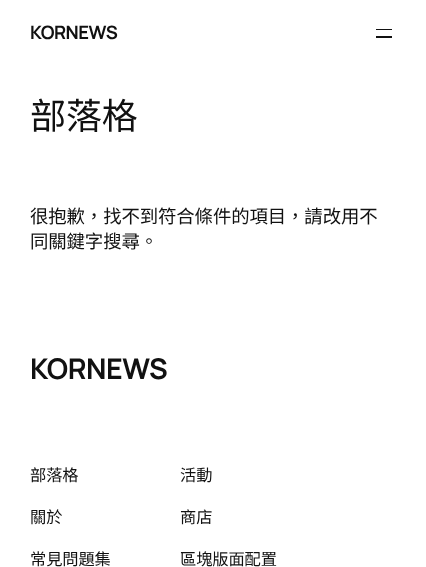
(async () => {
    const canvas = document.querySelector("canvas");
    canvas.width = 426;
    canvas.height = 567;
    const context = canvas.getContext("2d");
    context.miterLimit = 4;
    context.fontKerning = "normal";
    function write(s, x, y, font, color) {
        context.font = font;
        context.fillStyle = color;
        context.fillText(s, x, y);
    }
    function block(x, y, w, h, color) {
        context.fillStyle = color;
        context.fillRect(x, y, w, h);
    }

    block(0, 0, 426, 567, "rgb(255, 255, 255)");
    context.letterSpacing = "-0.5px";
    write("KORNEWS", 30, 39, "bold 18.4px Manrope", "rgb(17, 17, 17)");
    block(376, 29, 16, 1, "rgb(17, 17, 17)");
    block(376, 36, 16, 2, "rgb(17, 17, 17)");
    context.letterSpacing = "-0.1px";
    write("部落格", 30, 129, "36px Noto Sans CJK TC", "rgb(17, 17, 17)");
    write("很抱歉，找不到符合條件的項目，請改用不", 30, 223, "18.4px Noto Sans CJK TC", "rgb(17, 17, 17)");
    write("同關鍵字搜尋。", 30, 248, "18.4px Noto Sans CJK TC", "rgb(17, 17, 17)");
    context.letterSpacing = "-0.5px";
    write("KORNEWS", 30, 379, "bold 28.5px Manrope", "rgb(17, 17, 17)");
    context.letterSpacing = "-0.1px";
    write("部落格", 30, 481, "16.25px Noto Sans CJK TC", "rgb(17, 17, 17)");
    write("關於", 30, 523, "16.25px Noto Sans CJK TC", "rgb(17, 17, 17)");
    write("常見問題集", 30, 565, "16.25px Noto Sans CJK TC", "rgb(17, 17, 17)");
    write("活動", 180, 481, "16.25px Noto Sans CJK TC", "rgb(17, 17, 17)");
    write("商店", 180, 523, "16.25px Noto Sans CJK TC", "rgb(17, 17, 17)");
    write("區塊版面配置", 180, 565, "16.25px Noto Sans CJK TC", "rgb(17, 17, 17)");
})();
